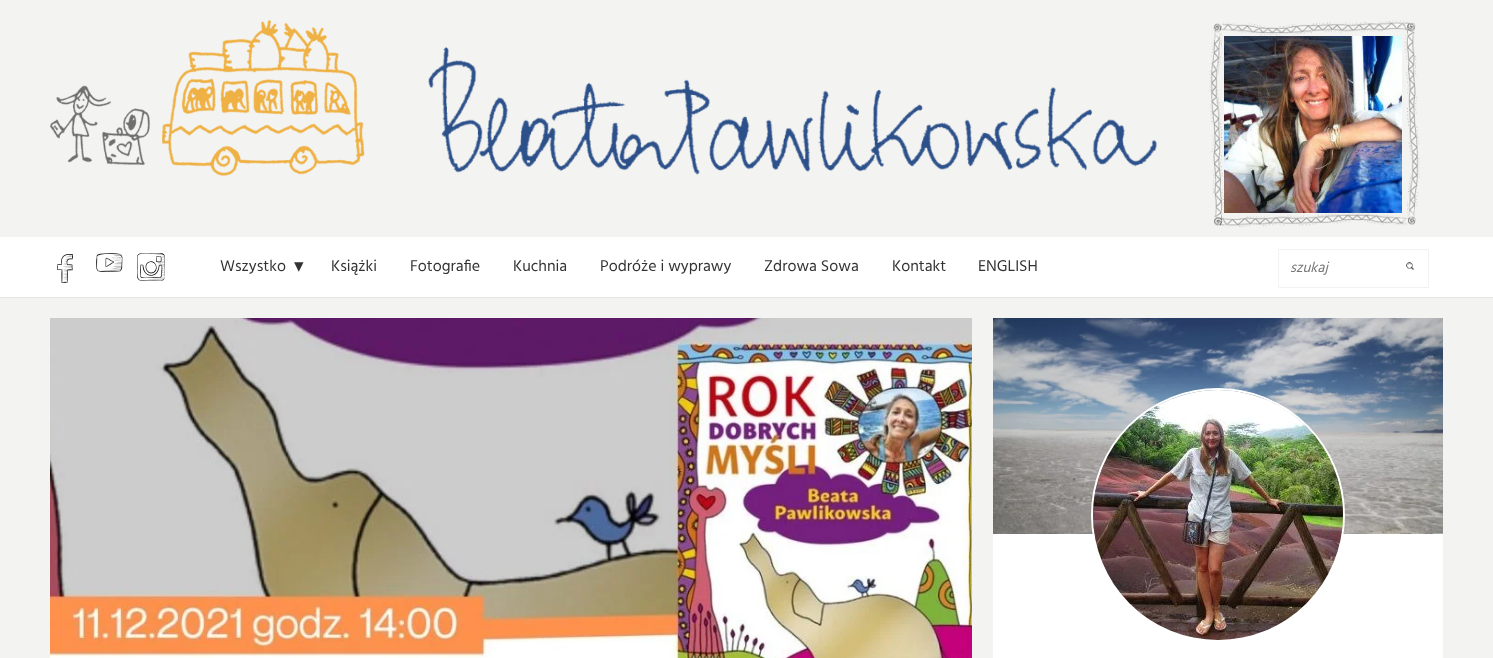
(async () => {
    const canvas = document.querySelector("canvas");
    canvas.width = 1493;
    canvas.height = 658;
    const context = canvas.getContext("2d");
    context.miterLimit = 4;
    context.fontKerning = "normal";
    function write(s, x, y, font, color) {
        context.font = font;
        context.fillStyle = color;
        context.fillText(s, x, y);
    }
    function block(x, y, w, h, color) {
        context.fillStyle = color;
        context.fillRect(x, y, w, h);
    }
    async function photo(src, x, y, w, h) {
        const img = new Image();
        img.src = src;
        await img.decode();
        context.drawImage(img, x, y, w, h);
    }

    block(0, 0, 1493, 658, "rgb(243, 243, 241)");
    await photo("media/1.png", 50, 20, 315, 156);
    await photo("media/2.png", 428, 47, 729, 128);
    await photo("media/4.png", 1224, 36, 178, 177);
    await photo("media/3.png", 1209, 20, 211, 207);
    block(0, 237, 1493, 60, "rgb(255, 255, 255)");
    block(0, 297, 1493, 1, "rgb(230, 230, 230)");
    await photo("media/5.png", 57, 254, 16, 29);
    await photo("media/6.png", 96, 253, 27, 19);
    await photo("media/7.png", 137, 253, 28, 28);
    write("Wszystko", 220, 271, "16px Hind", "rgb(51, 51, 51)");
    write("▾", 294, 272, "19px DejaVu Sans", "rgb(51, 51, 51)");
    write("Książki", 331, 271, "16px Hind", "rgb(51, 51, 51)");
    write("Fotografie", 410, 271, "16px Hind", "rgb(51, 51, 51)");
    write("Kuchnia", 513, 271, "16px Hind", "rgb(51, 51, 51)");
    write("Podróże i wyprawy", 600, 271, "16px Hind", "rgb(51, 51, 51)");
    write("Zdrowa Sowa", 764, 271, "16px Hind", "rgb(51, 51, 51)");
    write("Kontakt", 892, 271, "16px Hind", "rgb(51, 51, 51)");
    write("ENGLISH", 978, 271, "16px Hind", "rgb(51, 51, 51)");
    context.strokeStyle = "rgb(242, 242, 242)";
    context.strokeRect(1278.5, 249.5, 150, 38);
    write("szukaj", 1290, 272, "italic 14.5px Hind", "rgb(117, 117, 117)");
    await photo("media/8.png", 1406, 262, 8, 8);
    await photo("media/9.png", 50, 318, 922, 340);
    block(993, 534, 450, 124, "rgb(255, 255, 255)");
    await photo("media/10.png", 993, 318, 450, 216);
    context.beginPath();
    context.arc(1218, 515, 126, 0, Math.PI * 2);
    context.strokeStyle = "rgb(255, 255, 255)";
    context.lineWidth = 2;
    context.stroke();
    await photo("media/11.png", 1093, 390, 250, 250);
})();
